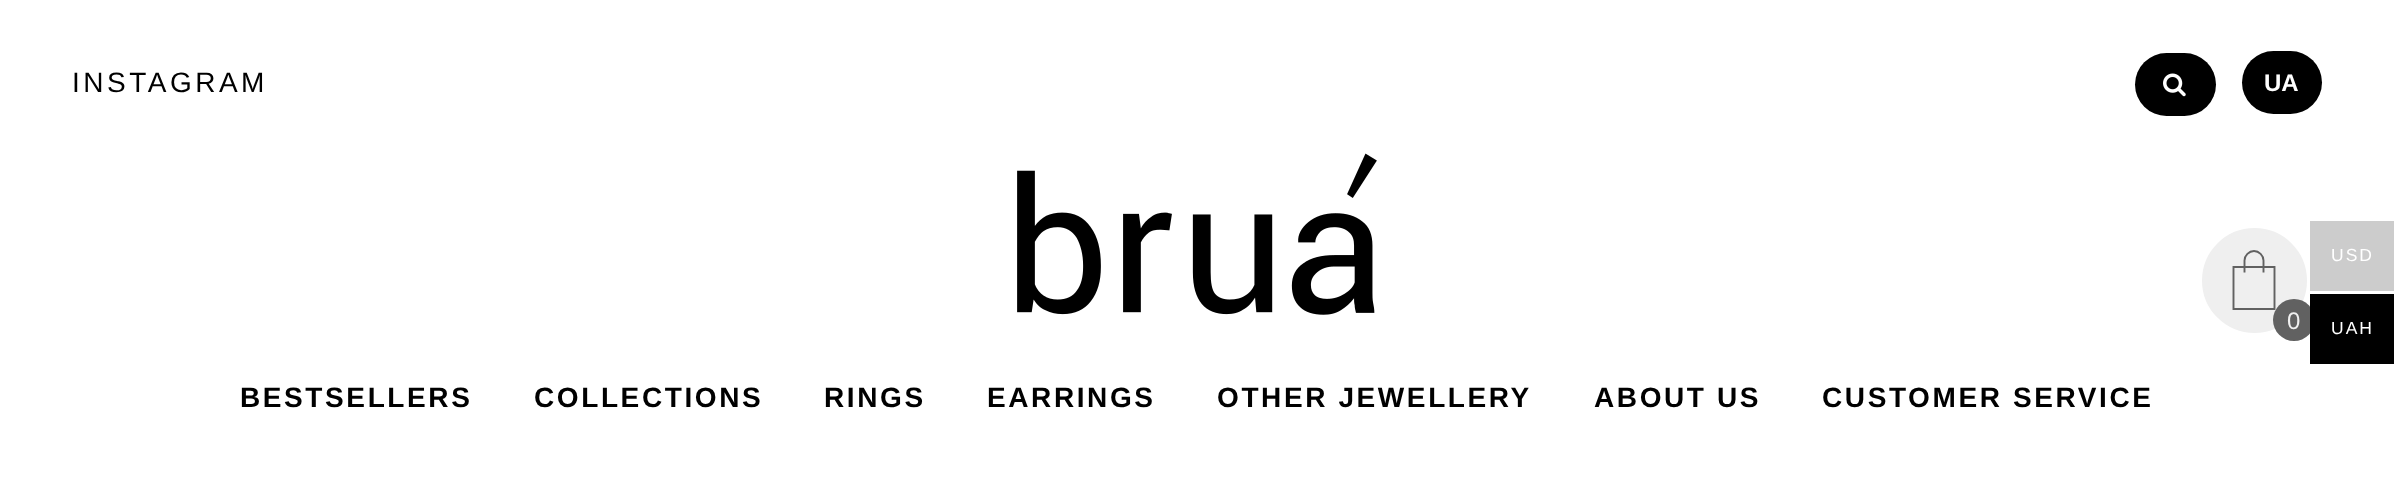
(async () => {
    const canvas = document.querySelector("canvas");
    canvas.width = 2394;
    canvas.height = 493;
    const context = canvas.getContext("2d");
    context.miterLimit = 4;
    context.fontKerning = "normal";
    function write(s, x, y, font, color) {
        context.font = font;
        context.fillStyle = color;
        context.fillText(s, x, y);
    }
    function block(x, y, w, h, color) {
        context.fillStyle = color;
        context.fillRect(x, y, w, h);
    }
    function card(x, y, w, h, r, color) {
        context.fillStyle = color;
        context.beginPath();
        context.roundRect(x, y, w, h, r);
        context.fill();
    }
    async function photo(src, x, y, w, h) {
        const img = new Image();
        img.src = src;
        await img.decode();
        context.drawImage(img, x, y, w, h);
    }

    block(0, 0, 2394, 493, "rgb(255, 255, 255)");
    context.letterSpacing = "3.5px";
    write("INSTAGRAM", 72, 92, "28px Liberation Sans", "rgb(0, 0, 0)");
    card(2135, 53, 81, 63, 31.5, "rgb(0, 0, 0)");
    await photo("media/1.png", 2163, 73, 23, 24);
    card(2242, 51, 80, 63, 31.5, "rgb(0, 0, 0)");
    context.letterSpacing = "0px";
    write("UA", 2264, 91, "bold 24px Liberation Sans", "rgb(255, 255, 255)");
    context.fillStyle = "rgb(239, 239, 239)";
    context.beginPath();
    context.arc(2254.5, 280.5, 51.5, 0, Math.PI * 2);
    context.fill();
    context.strokeStyle = "rgb(239, 239, 239)";
    context.lineWidth = 2;
    context.stroke();
    context.beginPath();
    context.moveTo(2265, 267);
    context.lineTo(2274.5, 267);
    context.lineTo(2274.5, 309);
    context.lineTo(2233.5, 309);
    context.lineTo(2233.5, 267);
    context.lineTo(2243, 267);
    context.closePath();
    context.moveTo(2244.5, 272.5);
    context.lineTo(2244.5, 260.5);
    context.bezierCurveTo(2244.5, 255.5, 2249, 251, 2254, 251);
    context.bezierCurveTo(2259, 251, 2263.5, 255.5, 2263.5, 260.5);
    context.lineTo(2263.5, 272.5);
    context.strokeStyle = "rgb(97, 97, 97)";
    context.lineWidth = 1.9;
    context.stroke();
    context.fillStyle = "rgb(97, 97, 97)";
    context.beginPath();
    context.arc(2294, 320, 21, 0, Math.PI * 2);
    context.fill();
    write("0", 2287, 329, "24px Liberation Sans", "rgb(239, 239, 239)");
    await photo("media/2.png", 1017, 153, 360, 162);
    context.letterSpacing = "2.6px";
    write("BESTSELLERS", 240, 407, "bold 28px Liberation Sans", "rgb(0, 0, 0)");
    write("COLLECTIONS", 534, 407, "bold 28px Liberation Sans", "rgb(0, 0, 0)");
    write("RINGS", 824, 407, "bold 28px Liberation Sans", "rgb(0, 0, 0)");
    write("EARRINGS", 987, 407, "bold 28px Liberation Sans", "rgb(0, 0, 0)");
    write("OTHER JEWELLERY", 1217, 407, "bold 28px Liberation Sans", "rgb(0, 0, 0)");
    write("ABOUT US", 1594, 407, "bold 28px Liberation Sans", "rgb(0, 0, 0)");
    write("CUSTOMER SERVICE", 1822, 407, "bold 28px Liberation Sans", "rgb(0, 0, 0)");
    block(2310, 221, 84, 70, "rgb(204, 204, 204)");
    context.letterSpacing = "2px";
    write("USD", 2331, 261, "17.5px Liberation Sans", "rgb(255, 255, 255)");
    block(2310, 294, 84, 70, "rgb(0, 0, 0)");
    write("UAH", 2331, 334, "17.5px Liberation Sans", "rgb(255, 255, 255)");
})();
